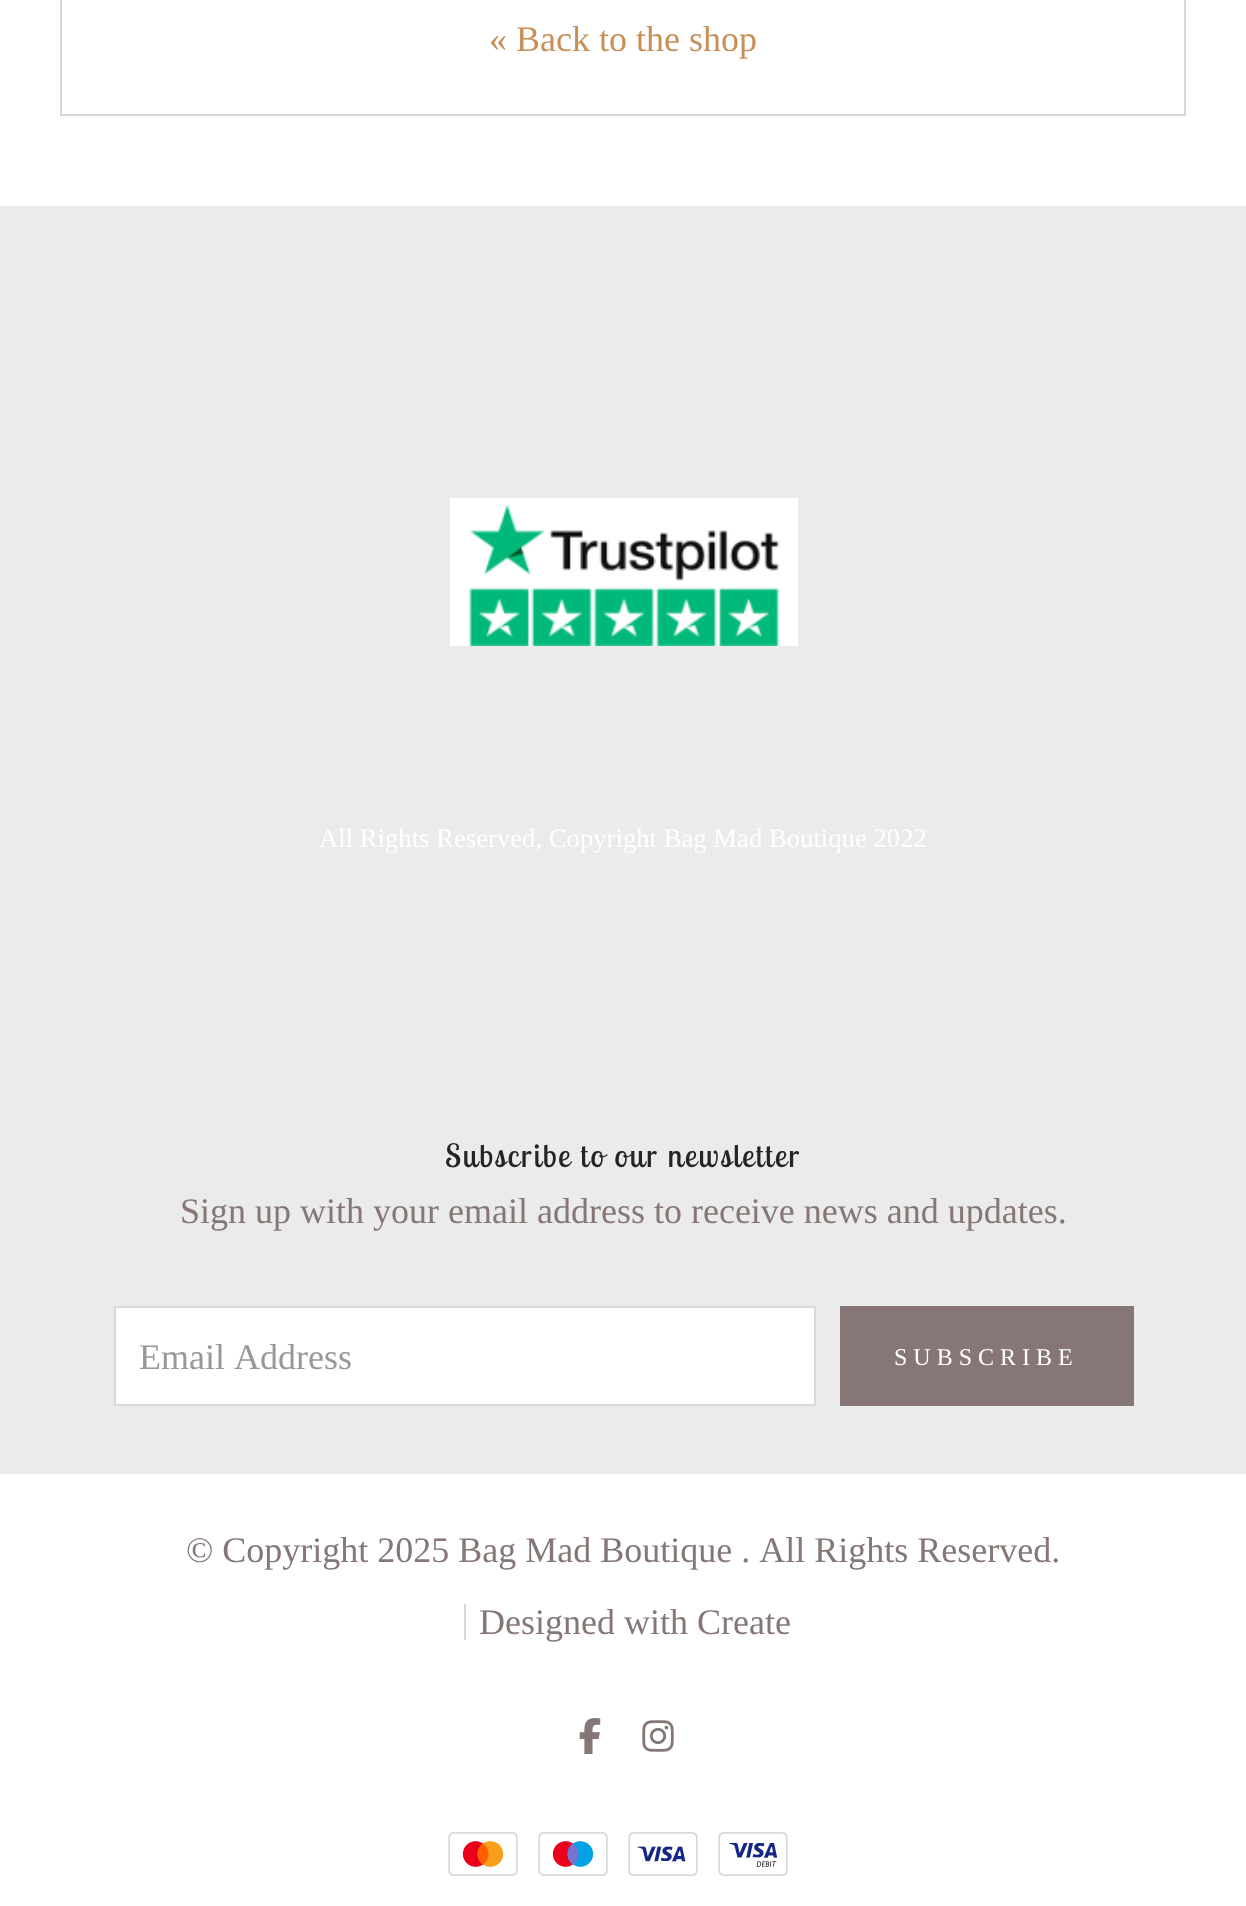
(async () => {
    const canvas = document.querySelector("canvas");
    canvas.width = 1246;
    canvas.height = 1906;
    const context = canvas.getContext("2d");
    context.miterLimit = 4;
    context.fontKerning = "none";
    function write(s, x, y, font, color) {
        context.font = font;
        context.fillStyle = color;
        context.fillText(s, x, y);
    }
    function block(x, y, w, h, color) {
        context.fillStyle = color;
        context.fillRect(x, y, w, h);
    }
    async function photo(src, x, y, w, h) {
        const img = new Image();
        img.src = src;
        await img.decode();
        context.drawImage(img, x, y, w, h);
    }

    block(0, 0, 1246, 1906, "rgb(255, 255, 255)");
    context.strokeStyle = "rgb(216, 216, 216)";
    context.lineWidth = 2;
    context.strokeRect(61, -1, 1124, 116);
    write("« Back to the shop", 489, 51, "36px Tinos", "rgb(199, 143, 87)");
    block(0, 206, 1246, 1268, "rgb(235, 235, 235)");
    await photo("media/1.png", 450, 498, 348, 148);
    write("All Rights Reserved, Copyright Bag Mad Boutique 2022", 319, 847, "26.7px Tinos", "rgb(255, 255, 255)");
    context.letterSpacing = "2px";
    write("Subscribe to our newsletter", 445, 1167, "31.9px Lobster Two", "rgb(36, 36, 36)");
    context.letterSpacing = "0px";
    write("Sign up with your email address to receive news and updates.", 180, 1223, "36px Tinos", "rgb(134, 118, 118)");
    context.fillStyle = "rgb(255, 255, 255)";
    context.beginPath();
    context.rect(115, 1307, 700, 98);
    context.fill();
    context.stroke();
    write("Email Address", 139, 1369, "36px Tinos", "rgb(152, 152, 152)");
    block(840, 1306, 294, 100, "rgb(134, 118, 118)");
    context.letterSpacing = "6px";
    write("SUBSCRIBE", 894, 1365, "24px Tinos", "rgb(255, 255, 255)");
    context.letterSpacing = "0px";
    write("© Copyright 2025 Bag Mad Boutique . All Rights Reserved.", 186, 1562, "36px Tinos", "rgb(134, 118, 118)");
    block(464, 1604, 2, 36, "rgb(216, 216, 216)");
    write("Designed with Create", 479, 1634, "36px Tinos", "rgb(134, 118, 118)");
    await photo("media/2.png", 579, 1718, 22, 36);
    await photo("media/3.png", 642, 1720, 32, 32);
    await photo("media/4.png", 448, 1832, 70, 44);
    await photo("media/5.png", 538, 1832, 70, 44);
    await photo("media/6.png", 628, 1832, 70, 44);
    await photo("media/7.png", 718, 1832, 70, 44);
})();
